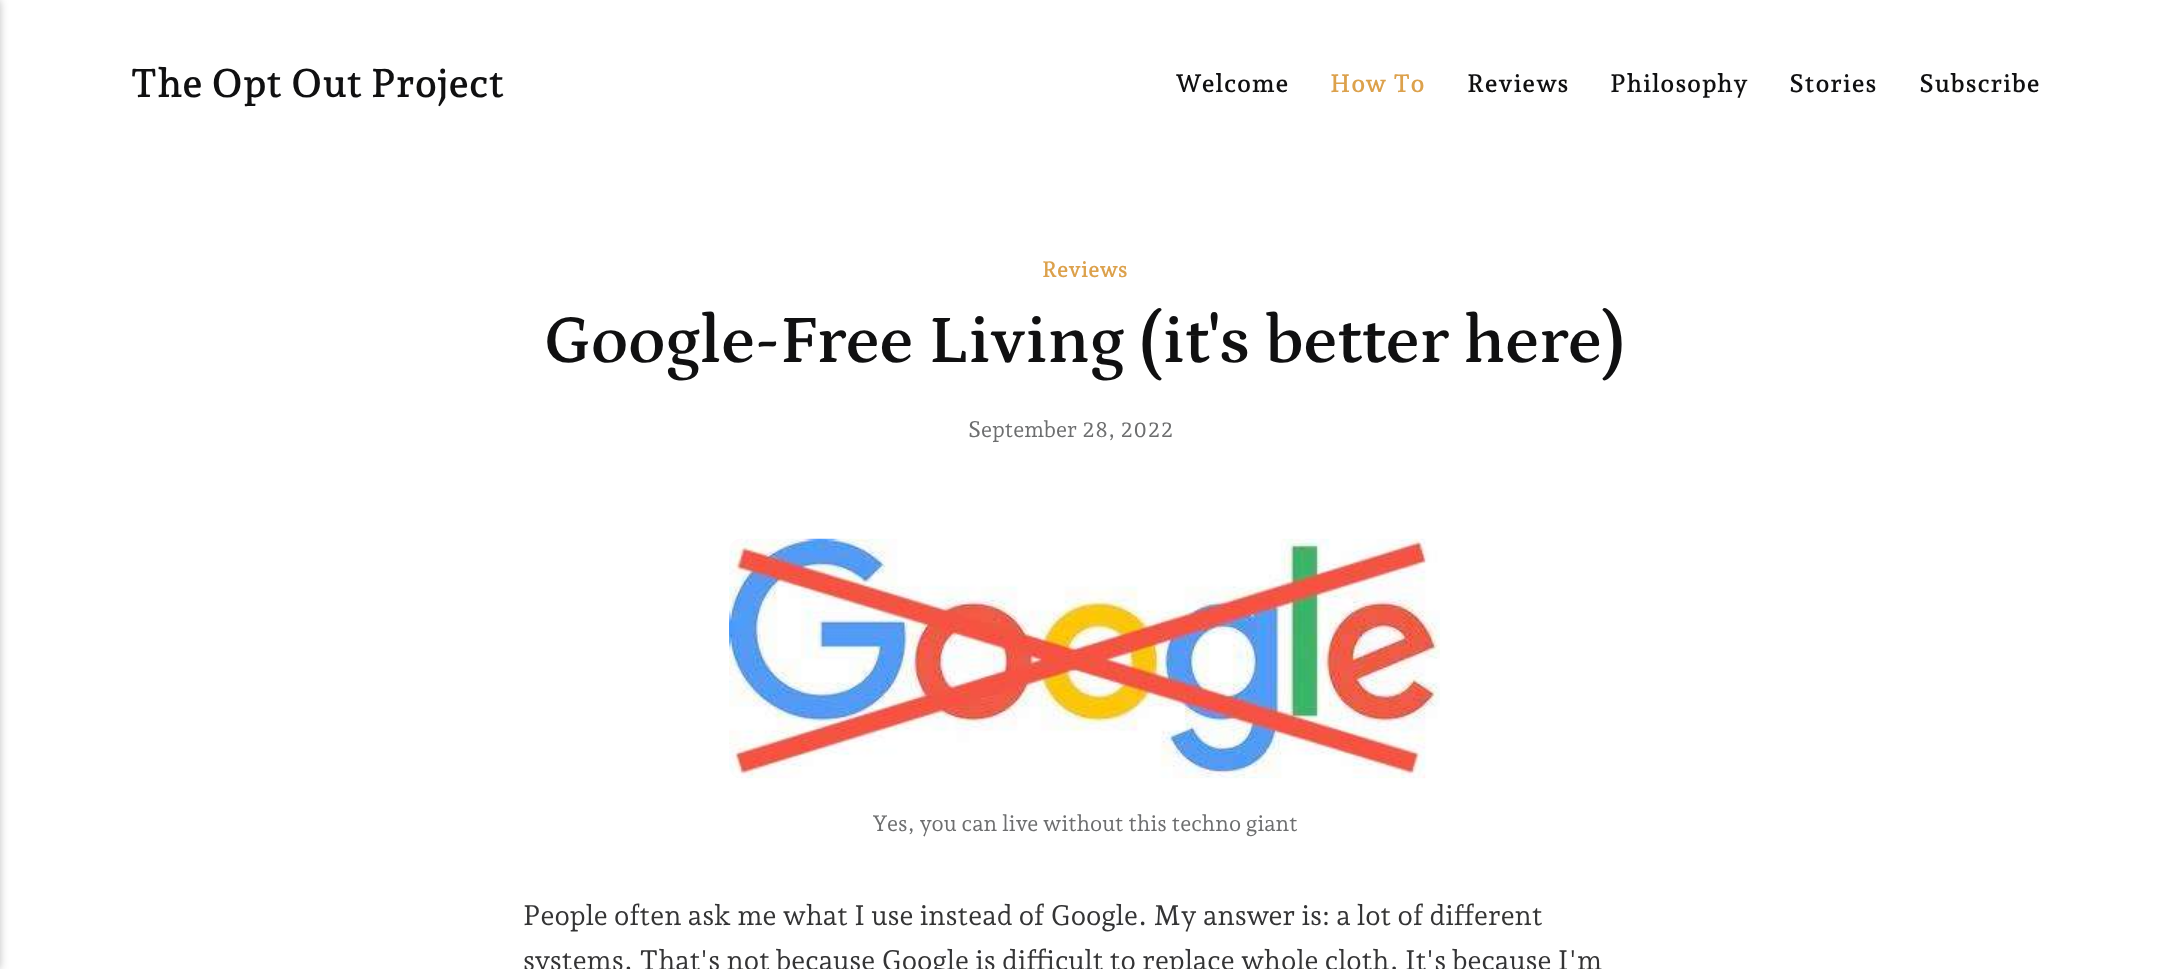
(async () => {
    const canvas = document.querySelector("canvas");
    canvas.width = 2169;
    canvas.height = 969;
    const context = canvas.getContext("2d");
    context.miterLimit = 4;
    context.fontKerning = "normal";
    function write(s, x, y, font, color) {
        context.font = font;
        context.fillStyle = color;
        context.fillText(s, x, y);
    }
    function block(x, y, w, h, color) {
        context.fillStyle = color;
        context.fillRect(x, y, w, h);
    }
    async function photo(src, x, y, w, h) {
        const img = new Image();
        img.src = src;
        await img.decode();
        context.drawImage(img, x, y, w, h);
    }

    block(0, 0, 2169, 969, "rgb(255, 255, 255)");
    context.fillStyle = "rgba(0, 0, 0, 0.25)";
    context.filter = "blur(4px)";
    context.beginPath();
    context.rect(-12, 0, 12, 969);
    context.fill();
    context.filter = "none";
    write("The Opt Out Project", 130, 97, "600 39.75px Andada Pro", "rgb(16, 16, 17)");
    context.letterSpacing = "0.75px";
    write("Welcome", 1175, 92, "600 25px Andada Pro", "rgb(16, 16, 17)");
    write("How To", 1330, 92, "600 25px Andada Pro", "rgb(220, 161, 76)");
    write("Reviews", 1467, 92, "600 25px Andada Pro", "rgb(16, 16, 17)");
    write("Philosophy", 1610, 92, "600 25px Andada Pro", "rgb(16, 16, 17)");
    write("Stories", 1789, 92, "600 25px Andada Pro", "rgb(16, 16, 17)");
    write("Subscribe", 1919, 92, "600 25px Andada Pro", "rgb(16, 16, 17)");
    context.letterSpacing = "0px";
    write("Reviews", 1042, 277, "600 22.1px Andada Pro", "rgb(220, 161, 76)");
    write("Google-Free Living (it's better here)", 544, 362, "600 68.75px Petrona", "rgb(16, 16, 17)");
    write("September 28, 2022", 968, 437, "22.1px Andada Pro", "rgb(109, 110, 111)");
    await photo("media/1.png", 729, 538, 711, 241);
    write("Yes, you can live without this techno giant", 872, 831, "22.1px Andada Pro", "rgb(109, 110, 111)");
    write("People often ask me what I use instead of Google. My answer is: a lot of different", 523, 925, "27.95px Andada Pro", "rgb(52, 52, 53)");
    write("systems. That's not because Google is difficult to replace whole cloth. It's because I'm", 523, 970, "27.95px Andada Pro", "rgb(52, 52, 53)");
})();
